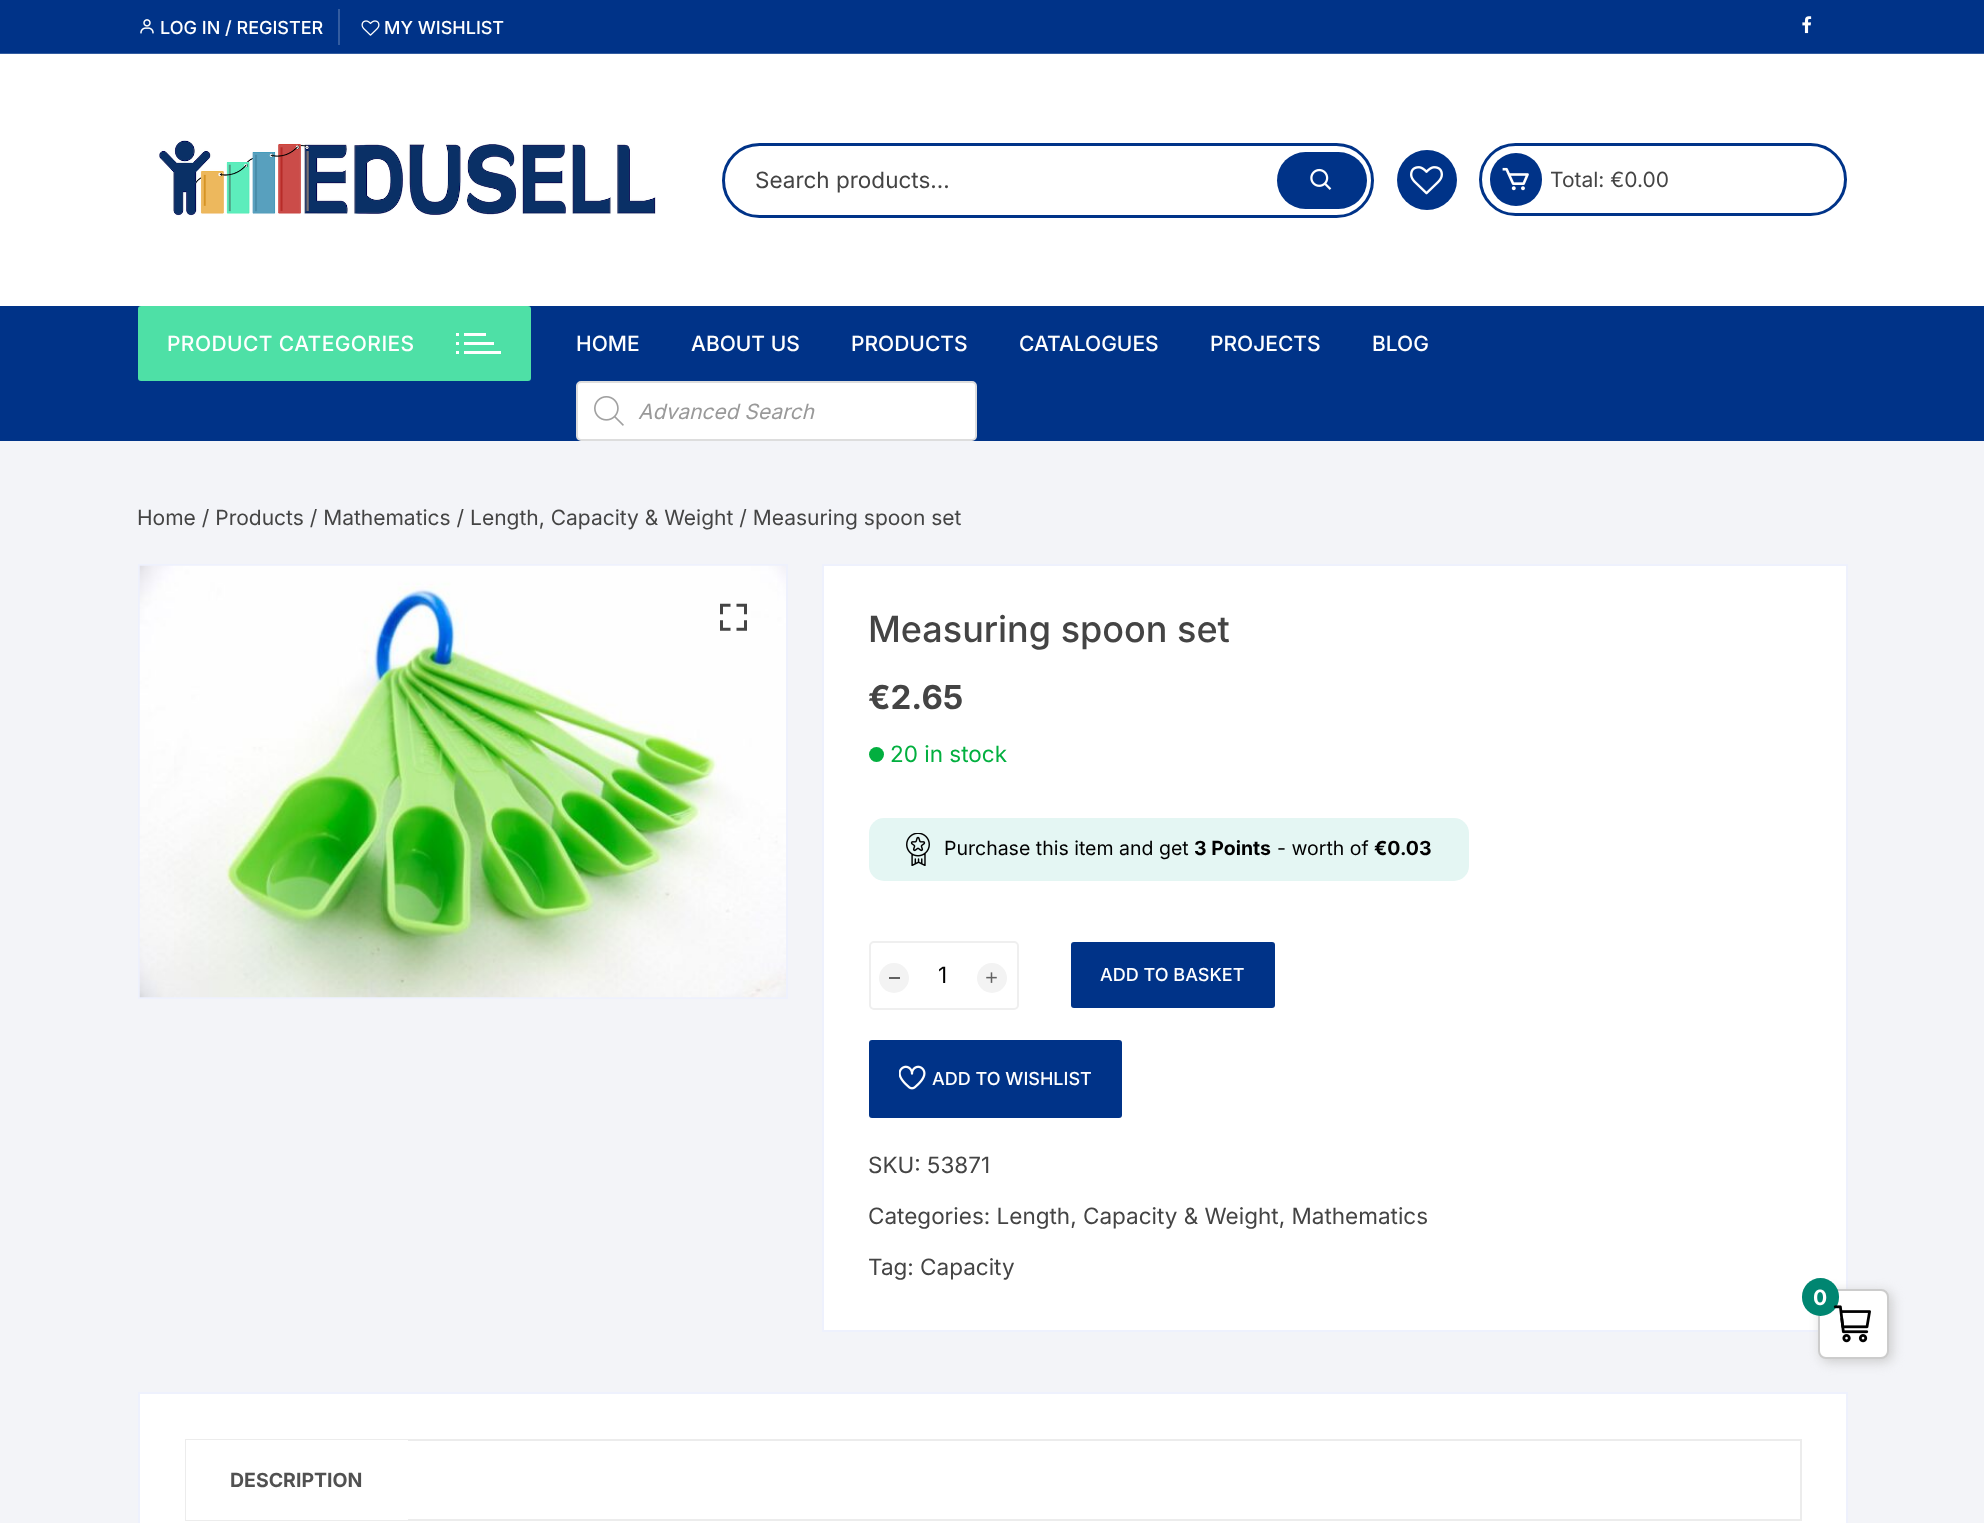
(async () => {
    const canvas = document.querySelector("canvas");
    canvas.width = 1984;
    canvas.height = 1523;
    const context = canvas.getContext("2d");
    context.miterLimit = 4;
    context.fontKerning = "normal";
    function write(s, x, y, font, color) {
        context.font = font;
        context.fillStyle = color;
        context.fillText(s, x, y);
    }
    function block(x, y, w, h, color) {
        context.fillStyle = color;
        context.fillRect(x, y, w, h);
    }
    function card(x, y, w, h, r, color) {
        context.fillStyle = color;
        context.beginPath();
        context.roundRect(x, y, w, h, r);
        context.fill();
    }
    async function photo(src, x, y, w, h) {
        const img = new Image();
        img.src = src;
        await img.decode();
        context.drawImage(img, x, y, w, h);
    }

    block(0, 0, 1984, 1523, "rgb(243, 244, 248)");
    block(0, 54, 1984, 252, "rgb(255, 255, 255)");
    block(0, 0, 1984, 53, "rgb(0, 51, 136)");
    block(0, 53, 1984, 1, "rgb(51, 92, 160)");
    block(338, 9, 2, 36, "rgb(51, 92, 160)");
    await photo("media/1.png", 140, 19, 14, 15);
    write("LOG IN / REGISTER", 160, 34, "500 18px Inter", "rgb(255, 255, 255)");
    await photo("media/2.png", 361, 20, 19, 16);
    write("MY WISHLIST", 384, 34, "500 18px Inter", "rgb(255, 255, 255)");
    await photo("media/3.png", 1802, 16, 10, 18);
    await photo("media/4.png", 159, 140, 497, 76);
    context.beginPath();
    context.roundRect(723.5, 144.5, 649, 72, 36);
    context.strokeStyle = "rgb(0, 51, 136)";
    context.lineWidth = 3;
    context.stroke();
    write("Search products…", 755, 188, "22.5px Inter", "rgb(68, 68, 68)");
    card(1277, 152, 90, 57, 28.5, "rgb(0, 51, 136)");
    await photo("media/5.png", 1310, 168, 22, 22);
    context.beginPath();
    context.arc(1427, 180, 30, 0, Math.PI * 2);
    context.fill();
    await photo("media/6.png", 1410, 166, 33, 29);
    context.beginPath();
    context.roundRect(1480.5, 144.5, 365, 70, 35);
    context.stroke();
    card(1490, 153, 52, 53, 26, "rgb(0, 51, 136)");
    await photo("media/7.png", 1502, 167, 27, 24);
    write("Total: €0.00", 1550, 187, "21px Inter", "rgb(68, 68, 68)");
    block(0, 306, 1984, 135, "rgb(0, 51, 136)");
    card(138, 306, 393, 75, 3, "rgb(78, 224, 166)");
    context.letterSpacing = "0.4px";
    write("PRODUCT CATEGORIES", 167, 351, "500 21px Inter", "rgb(255, 255, 255)");
    block(464, 333, 22, 3, "rgb(255, 255, 255)");
    block(456, 333, 3, 3, "rgb(255, 255, 255)");
    block(464, 342, 30, 3, "rgb(255, 255, 255)");
    block(456, 342, 3, 3, "rgb(255, 255, 255)");
    block(464, 351, 37, 3, "rgb(255, 255, 255)");
    block(456, 351, 3, 3, "rgb(255, 255, 255)");
    context.letterSpacing = "0px";
    write("HOME", 576, 351, "500 21px Inter", "rgb(255, 255, 255)");
    write("ABOUT US", 691, 351, "500 21px Inter", "rgb(255, 255, 255)");
    write("PRODUCTS", 851, 351, "500 21px Inter", "rgb(255, 255, 255)");
    write("CATALOGUES", 1019, 351, "500 21px Inter", "rgb(255, 255, 255)");
    write("PROJECTS", 1210, 351, "500 21px Inter", "rgb(255, 255, 255)");
    write("BLOG", 1372, 351, "500 21px Inter", "rgb(255, 255, 255)");
    context.beginPath();
    context.roundRect(577, 382, 399, 58, 4);
    context.fill();
    context.strokeStyle = "rgb(221, 221, 221)";
    context.lineWidth = 2;
    context.stroke();
    await photo("media/8.png", 594, 396, 30, 30);
    write("Advanced Search", 638, 419, "italic 21px Inter", "rgb(153, 153, 153)");
    write("Home / Products / Mathematics / Length, Capacity & Weight / Measuring spoon set", 137, 525, "21px Inter", "rgb(68, 68, 68)");
    context.strokeStyle = "rgb(238, 241, 253)";
    context.strokeRect(139, 565, 648, 433);
    await photo("media/9.png", 139, 565, 647, 433);
    await photo("media/10.png", 720, 603, 27, 28);
    context.fillStyle = "rgb(255, 255, 255)";
    context.beginPath();
    context.rect(823, 565, 1024, 766);
    context.fill();
    context.stroke();
    write("Measuring spoon set", 868, 642, "500 36px Inter", "rgb(68, 68, 68)");
    write("€2.65", 868, 709, "bold 33px Inter", "rgb(68, 68, 68)");
    context.fillStyle = "rgb(2, 175, 63)";
    context.beginPath();
    context.arc(876.5, 754.5, 7.5, 0, Math.PI * 2);
    context.fill();
    write("20 in stock", 890, 762, "22.5px Inter", "rgb(2, 175, 63)");
    card(869, 818, 600, 63, 15, "rgb(228, 246, 243)");
    await photo("media/11.png", 906, 833, 24, 33);
    write("Purchase this item and get", 944, 855, "19.5px Inter", "rgb(0, 0, 0)");
    write("3 Points", 1194, 855, "bold 19.5px Inter", "rgb(0, 0, 0)");
    write("- worth of", 1277, 855, "19.5px Inter", "rgb(0, 0, 0)");
    write("€0.03", 1374, 855, "bold 19.5px Inter", "rgb(0, 0, 0)");
    context.beginPath();
    context.roundRect(870, 942, 148, 67, 4);
    context.strokeStyle = "rgb(239, 239, 239)";
    context.stroke();
    context.fillStyle = "rgb(243, 243, 243)";
    context.beginPath();
    context.arc(894, 978, 15, 0, Math.PI * 2);
    context.fill();
    block(889, 977, 11, 2, "rgb(97, 97, 97)");
    write("1", 938, 983, "22.5px Inter", "rgb(0, 0, 0)");
    context.fillStyle = "rgb(243, 243, 243)";
    context.beginPath();
    context.arc(992, 978, 15, 0, Math.PI * 2);
    context.fill();
    await photo("media/12.png", 986, 972, 11, 11);
    card(1071, 942, 204, 66, 3, "rgb(0, 51, 136)");
    write("ADD TO BASKET", 1100, 981, "500 18px Inter", "rgb(255, 255, 255)");
    card(869, 1040, 253, 78, 3, "rgb(0, 51, 136)");
    await photo("media/13.png", 899, 1065, 27, 25);
    write("ADD TO WISHLIST", 932, 1085, "500 18px Inter", "rgb(255, 255, 255)");
    write("SKU: 53871", 868, 1173, "22.5px Inter", "rgb(68, 68, 68)");
    write("Categories: Length, Capacity & Weight, Mathematics", 868, 1224, "22.5px Inter", "rgb(68, 68, 68)");
    write("Tag: Capacity", 868, 1275, "22.5px Inter", "rgb(68, 68, 68)");
    context.fillStyle = "rgb(255, 255, 255)";
    context.beginPath();
    context.rect(139, 1393, 1708, 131);
    context.fill();
    context.strokeStyle = "rgb(238, 241, 253)";
    context.stroke();
    context.strokeStyle = "rgb(236, 236, 236)";
    context.strokeRect(186, 1440, 1615, 80);
    block(186, 1440, 222, 80, "rgb(255, 255, 255)");
    write("DESCRIPTION", 230, 1487, "bold 19.5px Inter", "rgb(81, 81, 81)");
    context.fillStyle = "rgb(204, 204, 204)";
    context.filter = "blur(6px)";
    context.beginPath();
    context.roundRect(1821, 1292, 71, 70, 8);
    context.fill();
    context.filter = "none";
    context.fillStyle = "rgb(255, 255, 255)";
    context.beginPath();
    context.roundRect(1819, 1290, 69, 68, 7);
    context.fill();
    context.strokeStyle = "rgb(204, 204, 204)";
    context.stroke();
    card(1802, 1278, 37, 38, 18.5, "rgb(0, 134, 113)");
    write("0", 1813, 1305, "bold 21px Inter", "rgb(255, 255, 255)");
    await photo("media/14.png", 1833, 1305, 38, 38);
})();
